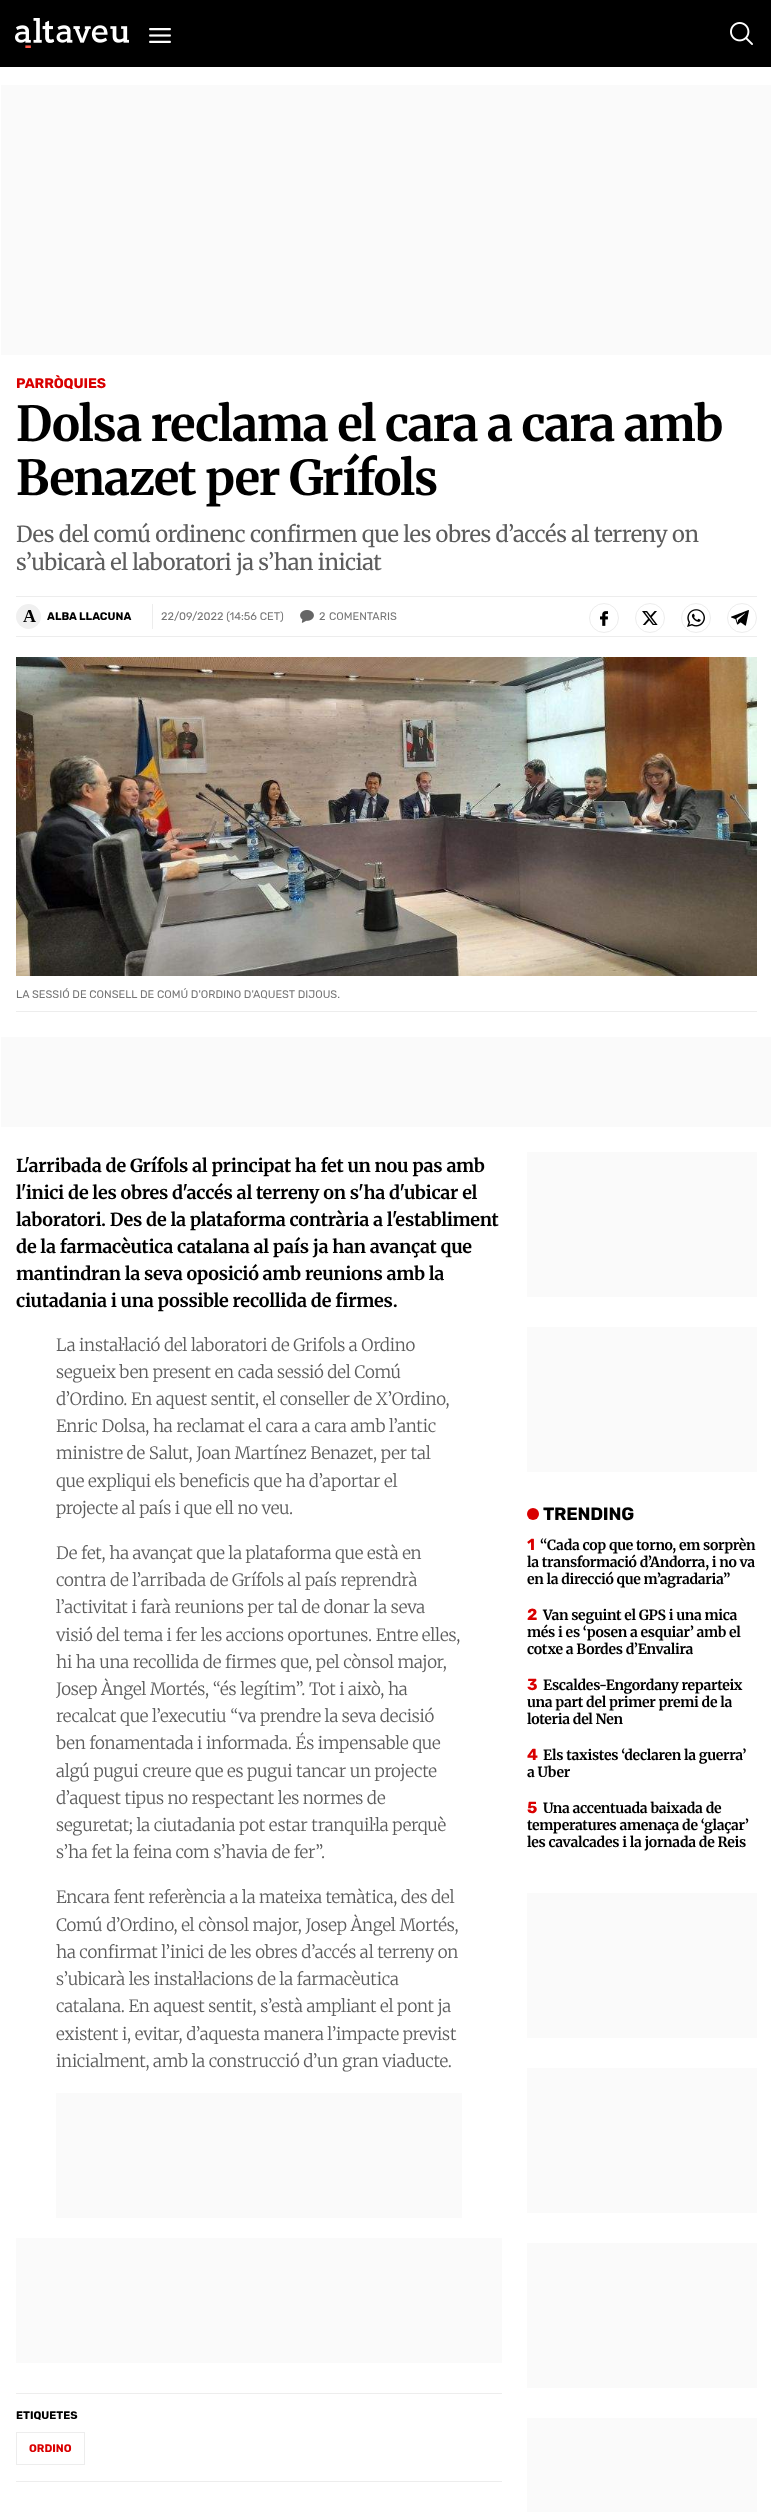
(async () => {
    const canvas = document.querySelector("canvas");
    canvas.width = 771;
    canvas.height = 2512;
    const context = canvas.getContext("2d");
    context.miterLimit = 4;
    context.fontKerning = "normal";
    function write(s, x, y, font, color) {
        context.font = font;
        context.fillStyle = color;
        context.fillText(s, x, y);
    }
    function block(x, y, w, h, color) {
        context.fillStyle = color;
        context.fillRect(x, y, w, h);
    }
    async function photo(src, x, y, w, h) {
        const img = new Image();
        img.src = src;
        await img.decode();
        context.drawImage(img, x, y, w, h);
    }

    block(0, 0, 771, 2512, "rgb(255, 255, 255)");
    block(0, 0, 771, 67, "rgb(0, 0, 0)");
    await photo("media/1.png", 15, 18, 114, 30);
    await photo("media/2.png", 149, 28, 22, 15);
    await photo("media/3.png", 730, 22, 23, 23);
    block(1, 85, 770, 270, "rgb(250, 250, 250)");
    context.letterSpacing = "-0.1px";
    write("PARRÒQUIES", 16, 388, "bold 14px Rubik", "rgb(217, 0, 0)");
    context.letterSpacing = "-0.95px";
    write("Dolsa reclama el cara a cara amb", 16, 441, "bold 48px Merriweather", "rgb(0, 0, 0)");
    write("Benazet per Grífols", 16, 495, "bold 48px Merriweather", "rgb(0, 0, 0)");
    context.letterSpacing = "-0.45px";
    write("Des del comú ordinenc confirmen que les obres d’accés al terreny on", 16, 542, "22px Merriweather", "rgb(93, 93, 93)");
    write("s’ubicarà el laboratori ja s’han iniciat", 16, 570, "22px Merriweather", "rgb(93, 93, 93)");
    block(16, 596, 741, 1, "rgb(237, 237, 237)");
    block(16, 636, 741, 1, "rgb(237, 237, 237)");
    context.fillStyle = "rgb(240, 240, 240)";
    context.beginPath();
    context.arc(28.5, 616.5, 12.5, 0, Math.PI * 2);
    context.fill();
    context.letterSpacing = "0px";
    write("A", 23, 622, "bold 18px Liberation Serif", "rgb(0, 0, 0)");
    write("ALBA LLACUNA", 47, 620, "bold 11px Rubik", "rgb(0, 0, 0)");
    block(152, 604, 1, 25, "rgb(237, 237, 237)");
    write("22/09/2022 (14:56 CET)", 161, 620, "11px Rubik", "rgb(117, 117, 117)");
    await photo("media/4.png", 300, 610, 14, 13);
    write("2", 319, 620, "11px Rubik", "rgb(117, 117, 117)");
    write("COMENTARIS", 329, 620, "11px Rubik", "rgb(117, 117, 117)");
    context.beginPath();
    context.arc(604, 618, 14.5, 0, Math.PI * 2);
    context.strokeStyle = "rgb(237, 237, 237)";
    context.stroke();
    await photo("media/5.png", 600, 611, 8, 15);
    context.beginPath();
    context.arc(650, 618, 14.5, 0, Math.PI * 2);
    context.stroke();
    await photo("media/6.png", 642, 611, 16, 14);
    context.beginPath();
    context.arc(696, 618, 14.5, 0, Math.PI * 2);
    context.stroke();
    await photo("media/7.png", 687, 609, 18, 18);
    context.beginPath();
    context.arc(742, 618, 14.5, 0, Math.PI * 2);
    context.stroke();
    await photo("media/8.png", 731, 610, 18, 16);
    await photo("media/9.png", 16, 657, 741, 319);
    block(16, 1011, 741, 1, "rgb(237, 237, 237)");
    write("LA SESSIÓ DE CONSELL DE COMÚ D'ORDINO D'AQUEST DIJOUS.", 16, 998, "11px Rubik", "rgb(117, 117, 117)");
    block(1, 1037, 770, 90, "rgb(250, 250, 250)");
    context.letterSpacing = "-0.27px";
    write("L'arribada de Grífols al principat ha fet un nou pas amb", 16, 1172, "bold 18px 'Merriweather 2'", "rgb(0, 0, 0)");
    write("l'inici de les obres d'accés al terreny on s'ha d'ubicar el", 16, 1199, "bold 18px 'Merriweather 2'", "rgb(0, 0, 0)");
    write("laboratori. Des de la plataforma contrària a l'establiment", 16, 1226, "bold 18px 'Merriweather 2'", "rgb(0, 0, 0)");
    write("de la farmacèutica catalana al país ja han avançat que", 16, 1253, "bold 18px 'Merriweather 2'", "rgb(0, 0, 0)");
    write("mantindran la seva oposició amb reunions amb la", 16, 1280, "bold 18px 'Merriweather 2'", "rgb(0, 0, 0)");
    write("ciutadania i una possible recollida de firmes.", 16, 1307, "bold 18px 'Merriweather 2'", "rgb(0, 0, 0)");
    context.letterSpacing = "-0.25px";
    write("La instal·lació del laboratori de Grifols a Ordino", 56, 1351, "300 17px Merriweather", "rgb(93, 93, 93)");
    write("segueix ben present en cada sessió del Comú", 56, 1378, "300 17px Merriweather", "rgb(93, 93, 93)");
    write("d’Ordino. En aquest sentit, el conseller de X’Ordino,", 56, 1405, "300 17px Merriweather", "rgb(93, 93, 93)");
    write("Enric Dolsa, ha reclamat el cara a cara amb l’antic", 56, 1432, "300 17px Merriweather", "rgb(93, 93, 93)");
    write("ministre de Salut, Joan Martínez Benazet, per tal", 56, 1459, "300 17px Merriweather", "rgb(93, 93, 93)");
    write("que expliqui els beneficis que ha d’aportar el", 56, 1487, "300 17px Merriweather", "rgb(93, 93, 93)");
    write("projecte al país i que ell no veu.", 56, 1514, "300 17px Merriweather", "rgb(93, 93, 93)");
    write("De fet, ha avançat que la plataforma que està en", 56, 1559, "300 17px Merriweather", "rgb(93, 93, 93)");
    write("contra de l’arribada de Grífols al país reprendrà", 56, 1586, "300 17px Merriweather", "rgb(93, 93, 93)");
    write("l’activitat i farà reunions per tal de donar la seva", 56, 1613, "300 17px Merriweather", "rgb(93, 93, 93)");
    write("visió del tema i fer les accions oportunes. Entre elles,", 56, 1641, "300 17px Merriweather", "rgb(93, 93, 93)");
    write("hi ha una recollida de firmes que, pel cònsol major,", 56, 1668, "300 17px Merriweather", "rgb(93, 93, 93)");
    write("Josep Àngel Mortés, “és legítim”. Tot i això, ha", 56, 1695, "300 17px Merriweather", "rgb(93, 93, 93)");
    write("recalcat que l’executiu “va prendre la seva decisió", 56, 1722, "300 17px Merriweather", "rgb(93, 93, 93)");
    write("ben fonamentada i informada. És impensable que", 56, 1749, "300 17px Merriweather", "rgb(93, 93, 93)");
    write("algú pugui creure que es pugui tancar un projecte", 56, 1777, "300 17px Merriweather", "rgb(93, 93, 93)");
    write("d’aquest tipus no respectant les normes de", 56, 1804, "300 17px Merriweather", "rgb(93, 93, 93)");
    write("seguretat; la ciutadania pot estar tranquil·la perquè", 56, 1831, "300 17px Merriweather", "rgb(93, 93, 93)");
    write("s’ha fet la feina com s’havia de fer”.", 56, 1858, "300 17px Merriweather", "rgb(93, 93, 93)");
    write("Encara fent referència a la mateixa temàtica, des del", 56, 1903, "300 17px Merriweather", "rgb(93, 93, 93)");
    write("Comú d’Ordino, el cònsol major, Josep Àngel Mortés,", 56, 1931, "300 17px Merriweather", "rgb(93, 93, 93)");
    write("ha confirmat l’inici de les obres d’accés al terreny on", 56, 1958, "300 17px Merriweather", "rgb(93, 93, 93)");
    write("s’ubicarà les instal·lacions de la farmacèutica", 56, 1985, "300 17px Merriweather", "rgb(93, 93, 93)");
    write("catalana. En aquest sentit, s’està ampliant el pont ja", 56, 2012, "300 17px Merriweather", "rgb(93, 93, 93)");
    write("existent i, evitar, d’aquesta manera l’impacte previst", 56, 2040, "300 17px Merriweather", "rgb(93, 93, 93)");
    write("inicialment, amb la construcció d’un gran viaducte.", 56, 2067, "300 17px Merriweather", "rgb(93, 93, 93)");
    block(56, 2093, 406, 125, "rgb(250, 250, 250)");
    block(16, 2238, 486, 125, "rgb(250, 250, 250)");
    block(16, 2393, 486, 1, "rgb(237, 237, 237)");
    block(16, 2481, 486, 1, "rgb(237, 237, 237)");
    context.letterSpacing = "0px";
    write("ETIQUETES", 16, 2419, "bold 11px Rubik", "rgb(0, 0, 0)");
    context.strokeRect(16.5, 2432.5, 68, 32);
    write("ORDINO", 29, 2452, "bold 11px Rubik", "rgb(217, 0, 0)");
    block(527, 1152, 230, 145, "rgb(250, 250, 250)");
    block(527, 1327, 230, 145, "rgb(250, 250, 250)");
    context.fillStyle = "rgb(217, 0, 0)";
    context.beginPath();
    context.arc(533, 1514, 6, 0, Math.PI * 2);
    context.fill();
    context.letterSpacing = "-0.25px";
    write("TRENDING", 543, 1520, "bold 18px Rubik", "rgb(0, 0, 0)");
    context.letterSpacing = "-0.3px";
    write("1", 527, 1550, "bold 16px Rubik", "rgb(217, 0, 0)");
    write("“Cada cop que torno, em sorprèn", 540, 1550, "bold 14px 'Merriweather 2'", "rgb(0, 0, 0)");
    write("la transformació d’Andorra, i no va", 527, 1567, "bold 14px 'Merriweather 2'", "rgb(0, 0, 0)");
    write("en la direcció que m’agradaria”", 527, 1584, "bold 14px 'Merriweather 2'", "rgb(0, 0, 0)");
    write("2", 527, 1620, "bold 16px Rubik", "rgb(217, 0, 0)");
    write("Van seguint el GPS i una mica", 543, 1620, "bold 14px 'Merriweather 2'", "rgb(0, 0, 0)");
    write("més i es ‘posen a esquiar’ amb el", 527, 1637, "bold 14px 'Merriweather 2'", "rgb(0, 0, 0)");
    write("cotxe a Bordes d’Envalira", 527, 1654, "bold 14px 'Merriweather 2'", "rgb(0, 0, 0)");
    write("3", 527, 1690, "bold 16px Rubik", "rgb(217, 0, 0)");
    write("Escaldes-Engordany reparteix", 543, 1690, "bold 14px 'Merriweather 2'", "rgb(0, 0, 0)");
    write("una part del primer premi de la", 527, 1707, "bold 14px 'Merriweather 2'", "rgb(0, 0, 0)");
    write("loteria del Nen", 527, 1724, "bold 14px 'Merriweather 2'", "rgb(0, 0, 0)");
    write("4", 527, 1760, "bold 16px Rubik", "rgb(217, 0, 0)");
    write("Els taxistes ‘declaren la guerra’", 543, 1760, "bold 14px 'Merriweather 2'", "rgb(0, 0, 0)");
    write("a Uber", 527, 1777, "bold 14px 'Merriweather 2'", "rgb(0, 0, 0)");
    write("5", 527, 1813, "bold 16px Rubik", "rgb(217, 0, 0)");
    write("Una accentuada baixada de", 543, 1813, "bold 14px 'Merriweather 2'", "rgb(0, 0, 0)");
    write("temperatures amenaça de ‘glaçar’", 527, 1830, "bold 14px 'Merriweather 2'", "rgb(0, 0, 0)");
    write("les cavalcades i la jornada de Reis", 527, 1847, "bold 14px 'Merriweather 2'", "rgb(0, 0, 0)");
    block(527, 1893, 230, 145, "rgb(250, 250, 250)");
    block(527, 2068, 230, 145, "rgb(250, 250, 250)");
    block(527, 2243, 230, 145, "rgb(250, 250, 250)");
    block(527, 2418, 230, 94, "rgb(250, 250, 250)");
})();
